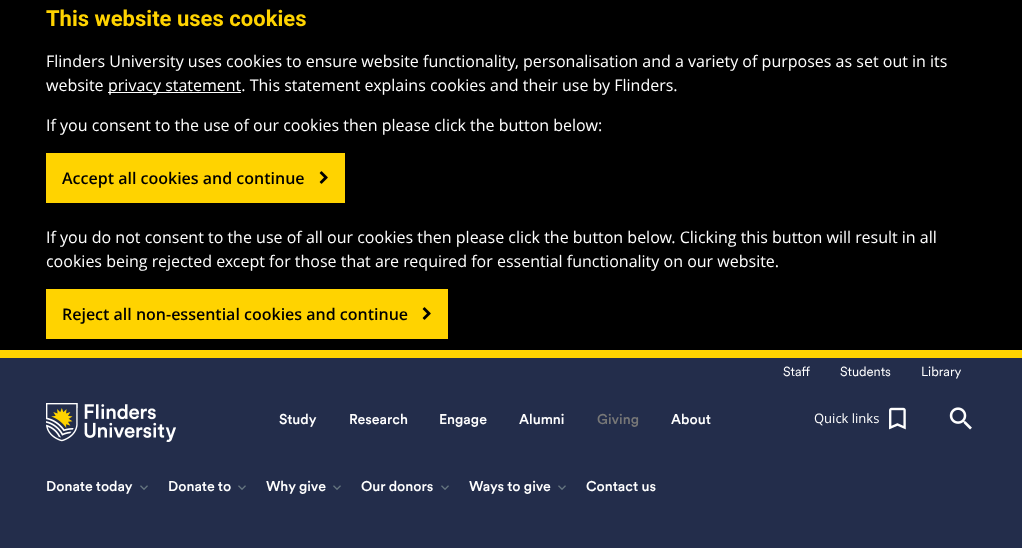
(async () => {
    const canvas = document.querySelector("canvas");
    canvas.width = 1022;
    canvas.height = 548;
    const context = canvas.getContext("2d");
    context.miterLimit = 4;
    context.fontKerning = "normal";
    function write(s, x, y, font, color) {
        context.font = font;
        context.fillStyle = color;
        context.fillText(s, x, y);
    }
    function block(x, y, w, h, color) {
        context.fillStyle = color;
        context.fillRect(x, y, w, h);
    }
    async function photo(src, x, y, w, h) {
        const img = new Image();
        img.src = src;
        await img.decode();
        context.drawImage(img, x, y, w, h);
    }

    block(0, 0, 1022, 548, "rgb(35, 45, 75)");
    block(0, 0, 1022, 350, "rgb(0, 0, 0)");
    write("This website uses cookies", 46, 26, "bold 22px Roboto", "rgb(255, 211, 0)");
    write("Flinders University uses cookies to ensure website functionality, personalisation and a variety of purposes as set out in its", 46, 67, "16px Open Sans", "rgb(255, 255, 255)");
    write("website", 46, 91, "16px Open Sans", "rgb(255, 255, 255)");
    block(108, 92, 133, 1, "rgb(255, 255, 255)");
    write("privacy statement. This statement explains cookies and their use by Flinders.", 108, 91, "16px Open Sans", "rgb(255, 255, 255)");
    write("If you consent to the use of our cookies then please click the button below:", 46, 131, "16px Open Sans", "rgb(255, 255, 255)");
    block(46, 153, 299, 50, "rgb(255, 211, 0)");
    write("Accept all cookies and continue", 62, 184, "600 16px Open Sans", "rgb(0, 0, 0)");
    await photo("media/1.png", 319, 171, 9, 13);
    write("If you do not consent to the use of all our cookies then please click the button below. Clicking this button will result in all", 46, 243, "16px Open Sans", "rgb(255, 255, 255)");
    write("cookies being rejected except for those that are required for essential functionality on our website.", 46, 267, "16px Open Sans", "rgb(255, 255, 255)");
    block(46, 289, 402, 50, "rgb(255, 211, 0)");
    write("Reject all non-essential cookies and continue", 62, 320, "600 16px Open Sans", "rgb(0, 0, 0)");
    await photo("media/1.png", 422, 307, 9, 13);
    block(0, 350, 1022, 8, "rgb(255, 211, 0)");
    write("Staff", 783, 376, "13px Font", "rgb(255, 255, 255)");
    write("Students", 840, 376, "13px Font", "rgb(255, 255, 255)");
    write("Library", 921, 376, "13px Font", "rgb(255, 255, 255)");
    await photo("media/2.png", 46, 403, 130, 39);
    write("Study", 279, 424, "500 14px Font", "rgb(255, 255, 255)");
    write("Research", 349, 424, "500 14px Font", "rgb(255, 255, 255)");
    write("Engage", 439, 424, "500 14px Font", "rgb(255, 255, 255)");
    write("Alumni", 519, 424, "500 14px Font", "rgb(255, 255, 255)");
    write("Giving", 597, 424, "500 14px Font", "rgb(119, 119, 119)");
    write("About", 671, 424, "500 14px Font", "rgb(255, 255, 255)");
    write("Quick links", 814, 423, "13px Open Sans", "rgb(255, 255, 255)");
    await photo("media/3.png", 889, 407, 17, 23);
    await photo("media/4.png", 949, 407, 23, 23);
    write("Donate today", 46, 491, "500 14px Font", "rgb(255, 255, 255)");
    await photo("media/5.png", 140, 485, 8, 5);
    write("Donate to", 168, 491, "500 14px Font", "rgb(255, 255, 255)");
    await photo("media/5.png", 238, 485, 8, 5);
    write("Why give", 266, 491, "500 14px Font", "rgb(255, 255, 255)");
    await photo("media/5.png", 333, 485, 8, 5);
    write("Our donors", 361, 491, "500 14px Font", "rgb(255, 255, 255)");
    await photo("media/5.png", 441, 485, 8, 5);
    write("Ways to give", 469, 491, "500 14px Font", "rgb(255, 255, 255)");
    await photo("media/5.png", 558, 485, 8, 5);
    write("Contact us", 586, 491, "500 14px Font", "rgb(255, 255, 255)");
})();
